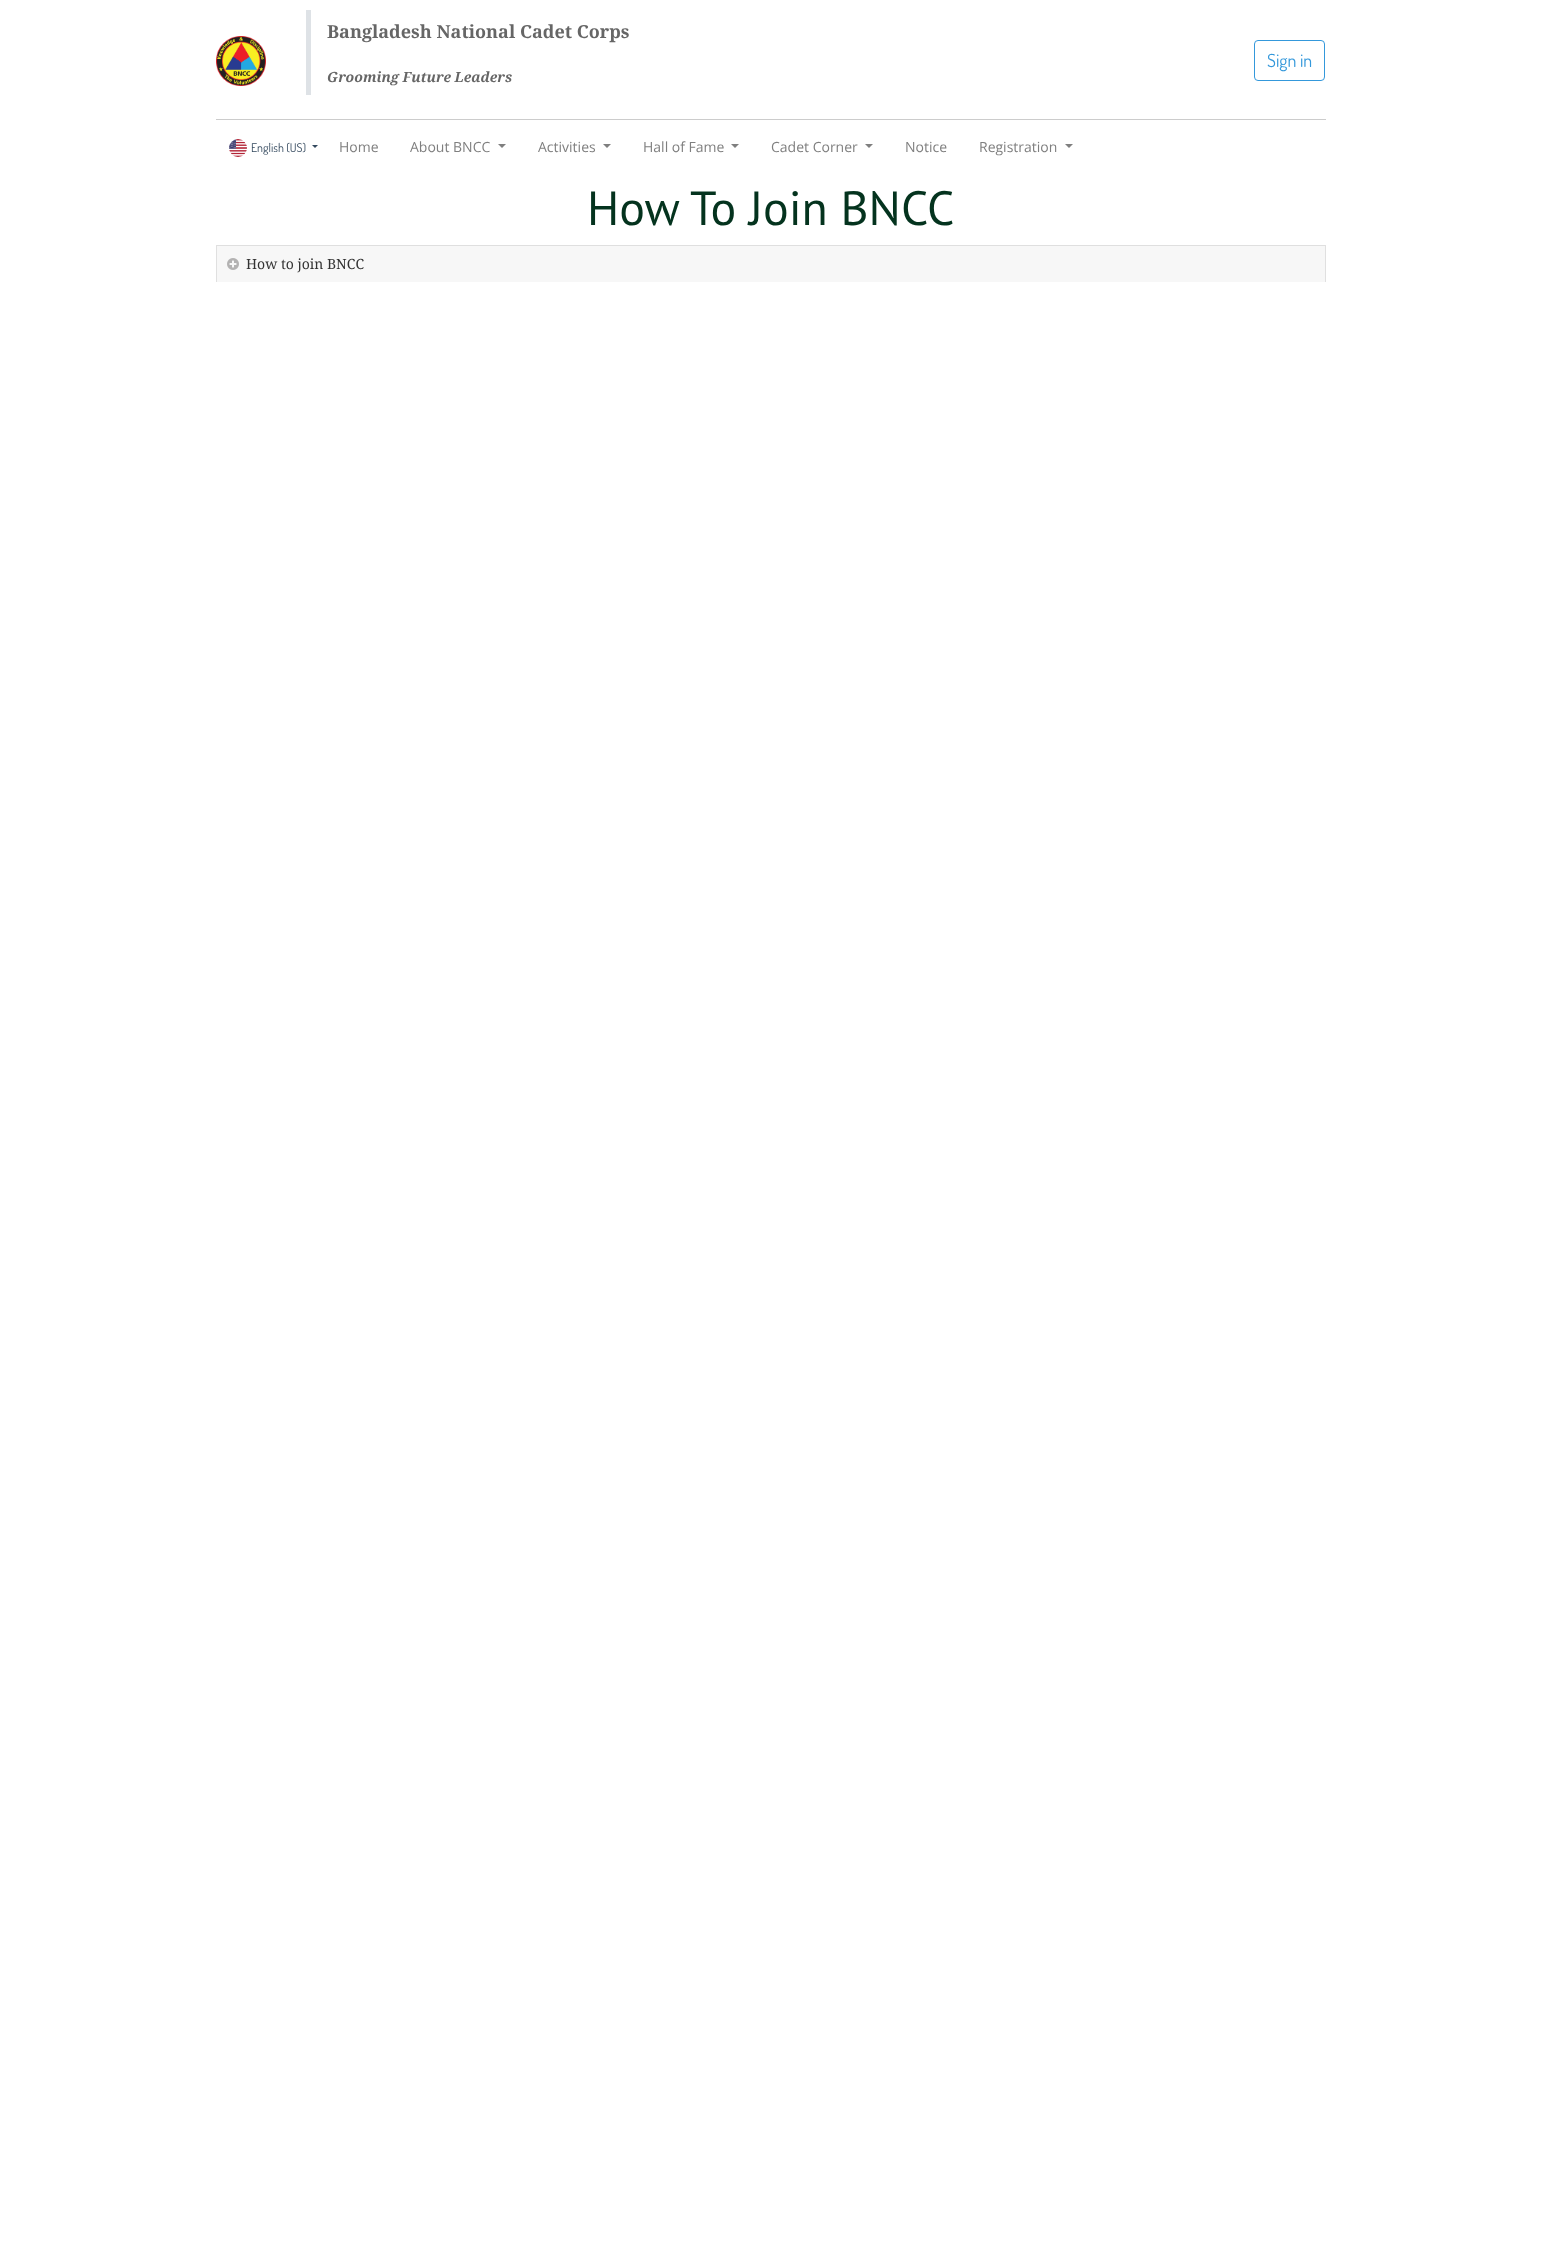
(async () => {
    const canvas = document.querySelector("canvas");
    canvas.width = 1541;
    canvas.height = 2254;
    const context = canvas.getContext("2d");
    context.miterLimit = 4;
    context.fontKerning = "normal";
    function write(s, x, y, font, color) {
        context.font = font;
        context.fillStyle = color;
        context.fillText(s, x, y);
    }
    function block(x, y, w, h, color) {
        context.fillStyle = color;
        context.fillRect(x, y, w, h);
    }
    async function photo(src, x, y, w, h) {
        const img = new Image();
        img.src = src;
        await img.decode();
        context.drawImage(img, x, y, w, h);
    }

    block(0, 0, 1541, 2254, "rgb(255, 255, 255)");
    await photo("media/1.png", 216, 36, 50, 50);
    block(306, 10, 5, 85, "rgb(222, 226, 230)");
    write("Bangladesh National Cadet Corps", 327, 38, "bold 18px Noto Serif", "rgb(102, 102, 102)");
    write("Grooming Future Leaders", 327, 82, "italic bold 14px Noto Serif", "rgb(102, 102, 102)");
    context.beginPath();
    context.roundRect(1254.5, 40.5, 70, 40, 3.5);
    context.strokeStyle = "rgb(52, 152, 219)";
    context.stroke();
    write("Sign in", 1267, 67, "18px Dosis", "rgb(52, 152, 219)");
    block(216, 119, 1110, 1, "rgb(204, 204, 204)");
    await photo("media/2.png", 229, 139, 18, 18);
    write("English (US)", 251, 152, "12px Dosis", "rgb(52, 73, 94)");
    context.beginPath();
    context.moveTo(312, 145);
    context.lineTo(318, 145);
    context.lineTo(315, 148);
    context.closePath();
    context.fill();
    write("Home", 339, 152, "14px Open Sans", "rgb(127, 127, 127)");
    write("About BNCC", 410, 152, "14px Open Sans", "rgb(127, 127, 127)");
    context.beginPath();
    context.moveTo(498, 144);
    context.lineTo(506, 144);
    context.lineTo(502, 148);
    context.closePath();
    context.fill();
    write("Activities", 538, 152, "14px Open Sans", "rgb(127, 127, 127)");
    context.beginPath();
    context.moveTo(603, 144);
    context.lineTo(611, 144);
    context.lineTo(607, 148);
    context.closePath();
    context.fill();
    write("Hall of Fame", 643, 152, "14px Open Sans", "rgb(127, 127, 127)");
    context.beginPath();
    context.moveTo(731, 144);
    context.lineTo(739, 144);
    context.lineTo(735, 148);
    context.closePath();
    context.fill();
    write("Cadet Corner", 771, 152, "14px Open Sans", "rgb(127, 127, 127)");
    context.beginPath();
    context.moveTo(865, 144);
    context.lineTo(873, 144);
    context.lineTo(869, 148);
    context.closePath();
    context.fill();
    write("Notice", 905, 152, "14px Open Sans", "rgb(127, 127, 127)");
    write("Registration", 979, 152, "14px Open Sans", "rgb(127, 127, 127)");
    context.beginPath();
    context.moveTo(1065, 144);
    context.lineTo(1073, 144);
    context.lineTo(1069, 148);
    context.closePath();
    context.fill();
    write("How To Join BNCC", 587, 225, "48px PT Sans", "rgb(4, 51, 30)");
    context.fillStyle = "rgb(223, 223, 223)";
    context.beginPath();
    context.moveTo(216, 245);
    context.lineTo(1326, 245);
    context.lineTo(1325, 246);
    context.lineTo(217, 246);
    context.closePath();
    context.fill();
    context.fillStyle = "rgba(0, 0, 0, 0.12)";
    context.beginPath();
    context.moveTo(1326, 245);
    context.lineTo(1326, 282);
    context.lineTo(1325, 282);
    context.lineTo(1325, 246);
    context.closePath();
    context.fill();
    context.beginPath();
    context.moveTo(216, 282);
    context.lineTo(216, 245);
    context.lineTo(217, 246);
    context.lineTo(217, 282);
    context.closePath();
    context.fill();
    block(217, 246, 1108, 36, "rgb(247, 247, 247)");
    await photo("media/3.png", 227, 258, 12, 12);
    write("How to join BNCC", 246, 269, "14px Noto Serif", "rgb(51, 51, 51)");
})();
